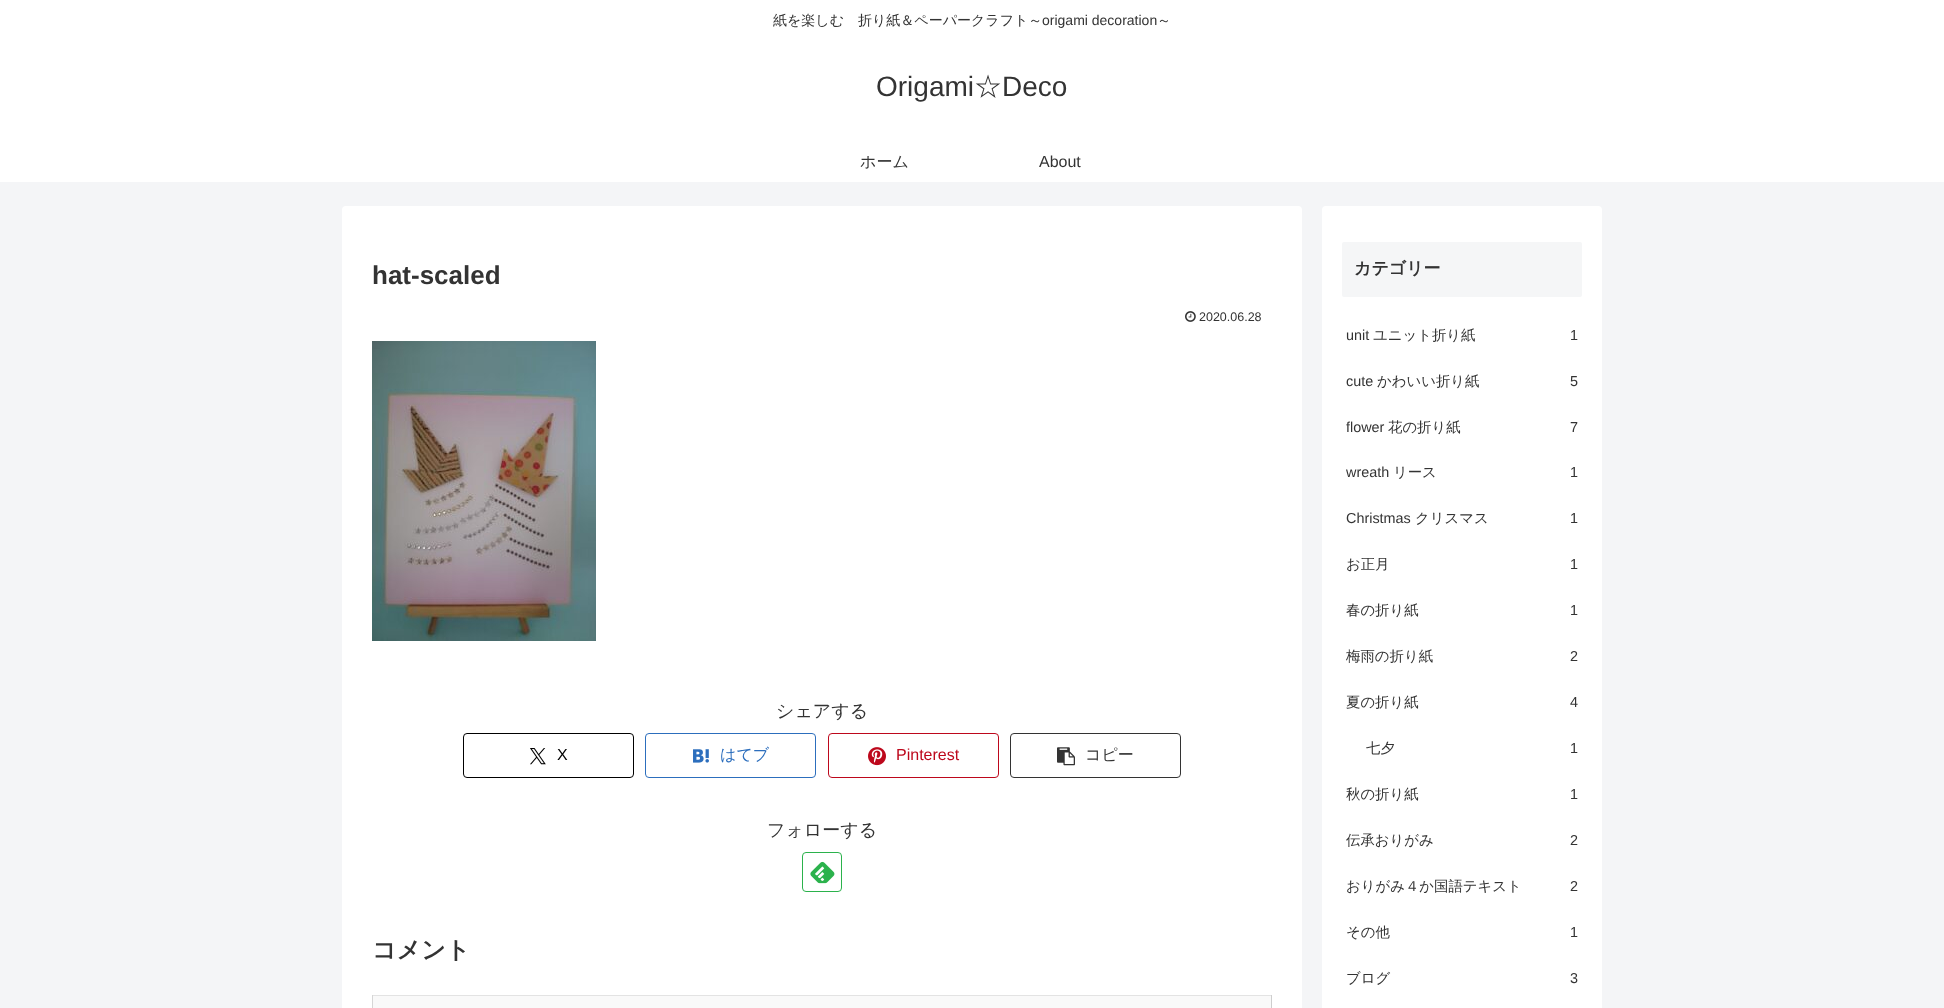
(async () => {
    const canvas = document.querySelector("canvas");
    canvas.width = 1944;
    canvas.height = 1008;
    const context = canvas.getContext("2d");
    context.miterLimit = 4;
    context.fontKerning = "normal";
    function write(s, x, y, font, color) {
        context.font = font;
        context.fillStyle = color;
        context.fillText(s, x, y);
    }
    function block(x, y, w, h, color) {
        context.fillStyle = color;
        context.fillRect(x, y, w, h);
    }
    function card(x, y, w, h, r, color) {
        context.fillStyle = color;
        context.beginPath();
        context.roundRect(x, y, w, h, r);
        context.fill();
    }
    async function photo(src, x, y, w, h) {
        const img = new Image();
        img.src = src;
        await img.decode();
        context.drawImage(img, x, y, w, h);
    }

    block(0, 0, 1944, 1008, "rgb(244, 245, 247)");
    block(0, 0, 1944, 182, "rgb(255, 255, 255)");
    write("紙を楽しむ　折り紙＆ペーパークラフト～", 773, 25, "500 14px WenQuanYi Zen Hei", "rgb(51, 51, 51)");
    write("origami decoration", 1042, 25, "14px Liberation Sans", "rgb(51, 51, 51)");
    write("～", 1157, 25, "500 14px WenQuanYi Zen Hei", "rgb(51, 51, 51)");
    write("Origami", 876, 96, "28px Liberation Sans", "rgb(51, 51, 51)");
    write("☆", 974, 96, "500 28px WenQuanYi Zen Hei", "rgb(51, 51, 51)");
    write("Deco", 1002, 96, "28px Liberation Sans", "rgb(51, 51, 51)");
    write("ホーム", 860, 167, "500 16px WenQuanYi Zen Hei", "rgb(51, 51, 51)");
    write("About", 1039, 167, "16px Liberation Sans", "rgb(51, 51, 51)");
    card(342, 206, 960, 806, 4, "rgb(255, 255, 255)");
    write("hat-scaled", 372, 284, "bold 26px Liberation Sans", "rgb(51, 51, 51)");
    await photo("media/1.png", 1185, 311, 11, 11);
    write("2020.06.28", 1199, 321, "12.5px Liberation Sans", "rgb(51, 51, 51)");
    await photo("media/2.png", 372, 341, 224, 300);
    write("シェアする", 776, 717, "500 18px WenQuanYi Zen Hei", "rgb(51, 51, 51)");
    context.beginPath();
    context.roundRect(463.5, 733.5, 170, 44, 3.5);
    context.strokeStyle = "rgb(0, 0, 0)";
    context.stroke();
    await photo("media/3.png", 530, 748, 16, 17);
    write("X", 557, 760, "16px Liberation Sans", "rgb(0, 0, 0)");
    context.beginPath();
    context.roundRect(645.5, 733.5, 170, 44, 3.5);
    context.strokeStyle = "rgb(44, 110, 189)";
    context.stroke();
    await photo("media/4.png", 693, 749, 16, 14);
    write("はてブ", 720, 760, "500 16px WenQuanYi Zen Hei", "rgb(44, 110, 189)");
    context.beginPath();
    context.roundRect(828.5, 733.5, 170, 44, 3.5);
    context.strokeStyle = "rgb(189, 8, 28)";
    context.stroke();
    await photo("media/5.png", 868, 747, 18, 19);
    write("Pinterest", 896, 760, "16px Liberation Sans", "rgb(189, 8, 28)");
    context.beginPath();
    context.roundRect(1010.5, 733.5, 170, 44, 3.5);
    context.strokeStyle = "rgb(51, 51, 51)";
    context.stroke();
    await photo("media/6.png", 1057, 747, 18, 19);
    write("コピー", 1085, 760, "500 16px WenQuanYi Zen Hei", "rgb(51, 51, 51)");
    write("フォローする", 767, 836, "500 18px WenQuanYi Zen Hei", "rgb(51, 51, 51)");
    context.beginPath();
    context.roundRect(802.5, 852.5, 39, 39, 3.5);
    context.strokeStyle = "rgb(43, 178, 76)";
    context.stroke();
    await photo("media/7.png", 810, 861, 25, 23);
    write("コメント", 372, 958, "bold 24px WenQuanYi Zen Hei", "rgb(51, 51, 51)");
    block(373, 996, 898, 12, "rgb(249, 249, 249)");
    block(372, 995, 900, 1, "rgb(227, 227, 227)");
    block(1271, 995, 1, 13, "rgb(206, 206, 206)");
    block(372, 995, 1, 13, "rgb(214, 214, 214)");
    card(1322, 206, 280, 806, 4, "rgb(255, 255, 255)");
    card(1342, 242, 240, 55, 2, "rgb(245, 246, 247)");
    write("カテゴリー", 1354, 274, "bold 17px WenQuanYi Zen Hei", "rgb(51, 51, 51)");
    write("unit", 1346, 340, "14.4px Liberation Sans", "rgb(51, 51, 51)");
    write("ユニット折り紙", 1373, 340, "500 14.4px WenQuanYi Zen Hei", "rgb(51, 51, 51)");
    write("1", 1570, 340, "14.4px Liberation Sans", "rgb(51, 51, 51)");
    write("cute", 1346, 386, "14.4px Liberation Sans", "rgb(51, 51, 51)");
    write("かわいい折り紙", 1377, 386, "500 14.4px WenQuanYi Zen Hei", "rgb(51, 51, 51)");
    write("5", 1570, 386, "14.4px Liberation Sans", "rgb(51, 51, 51)");
    write("flower", 1346, 432, "14.4px Liberation Sans", "rgb(51, 51, 51)");
    write("花の折り紙", 1388, 432, "500 14.4px WenQuanYi Zen Hei", "rgb(51, 51, 51)");
    write("7", 1570, 432, "14.4px Liberation Sans", "rgb(51, 51, 51)");
    write("wreath", 1346, 477, "14.4px Liberation Sans", "rgb(51, 51, 51)");
    write("リース", 1393, 477, "500 14.4px WenQuanYi Zen Hei", "rgb(51, 51, 51)");
    write("1", 1570, 477, "14.4px Liberation Sans", "rgb(51, 51, 51)");
    write("Christmas", 1346, 523, "14.4px Liberation Sans", "rgb(51, 51, 51)");
    write("クリスマス", 1415, 523, "500 14.4px WenQuanYi Zen Hei", "rgb(51, 51, 51)");
    write("1", 1570, 523, "14.4px Liberation Sans", "rgb(51, 51, 51)");
    write("お正月", 1346, 569, "500 14.4px WenQuanYi Zen Hei", "rgb(51, 51, 51)");
    write("1", 1570, 569, "14.4px Liberation Sans", "rgb(51, 51, 51)");
    write("春の折り紙", 1346, 615, "500 14.4px WenQuanYi Zen Hei", "rgb(51, 51, 51)");
    write("1", 1570, 615, "14.4px Liberation Sans", "rgb(51, 51, 51)");
    write("梅雨の折り紙", 1346, 661, "500 14.4px WenQuanYi Zen Hei", "rgb(51, 51, 51)");
    write("2", 1570, 661, "14.4px Liberation Sans", "rgb(51, 51, 51)");
    write("夏の折り紙", 1346, 707, "500 14.4px WenQuanYi Zen Hei", "rgb(51, 51, 51)");
    write("4", 1570, 707, "14.4px Liberation Sans", "rgb(51, 51, 51)");
    write("七夕", 1366, 753, "500 14.4px WenQuanYi Zen Hei", "rgb(51, 51, 51)");
    write("1", 1570, 753, "14.4px Liberation Sans", "rgb(51, 51, 51)");
    write("秋の折り紙", 1346, 799, "500 14.4px WenQuanYi Zen Hei", "rgb(51, 51, 51)");
    write("1", 1570, 799, "14.4px Liberation Sans", "rgb(51, 51, 51)");
    write("伝承おりがみ", 1346, 845, "500 14.4px WenQuanYi Zen Hei", "rgb(51, 51, 51)");
    write("2", 1570, 845, "14.4px Liberation Sans", "rgb(51, 51, 51)");
    write("おりがみ４か国語テキスト", 1346, 891, "500 14.4px WenQuanYi Zen Hei", "rgb(51, 51, 51)");
    write("2", 1570, 891, "14.4px Liberation Sans", "rgb(51, 51, 51)");
    write("その他", 1346, 937, "500 14.4px WenQuanYi Zen Hei", "rgb(51, 51, 51)");
    write("1", 1570, 937, "14.4px Liberation Sans", "rgb(51, 51, 51)");
    write("ブログ", 1346, 983, "500 14.4px WenQuanYi Zen Hei", "rgb(51, 51, 51)");
    write("3", 1570, 983, "14.4px Liberation Sans", "rgb(51, 51, 51)");
})();
